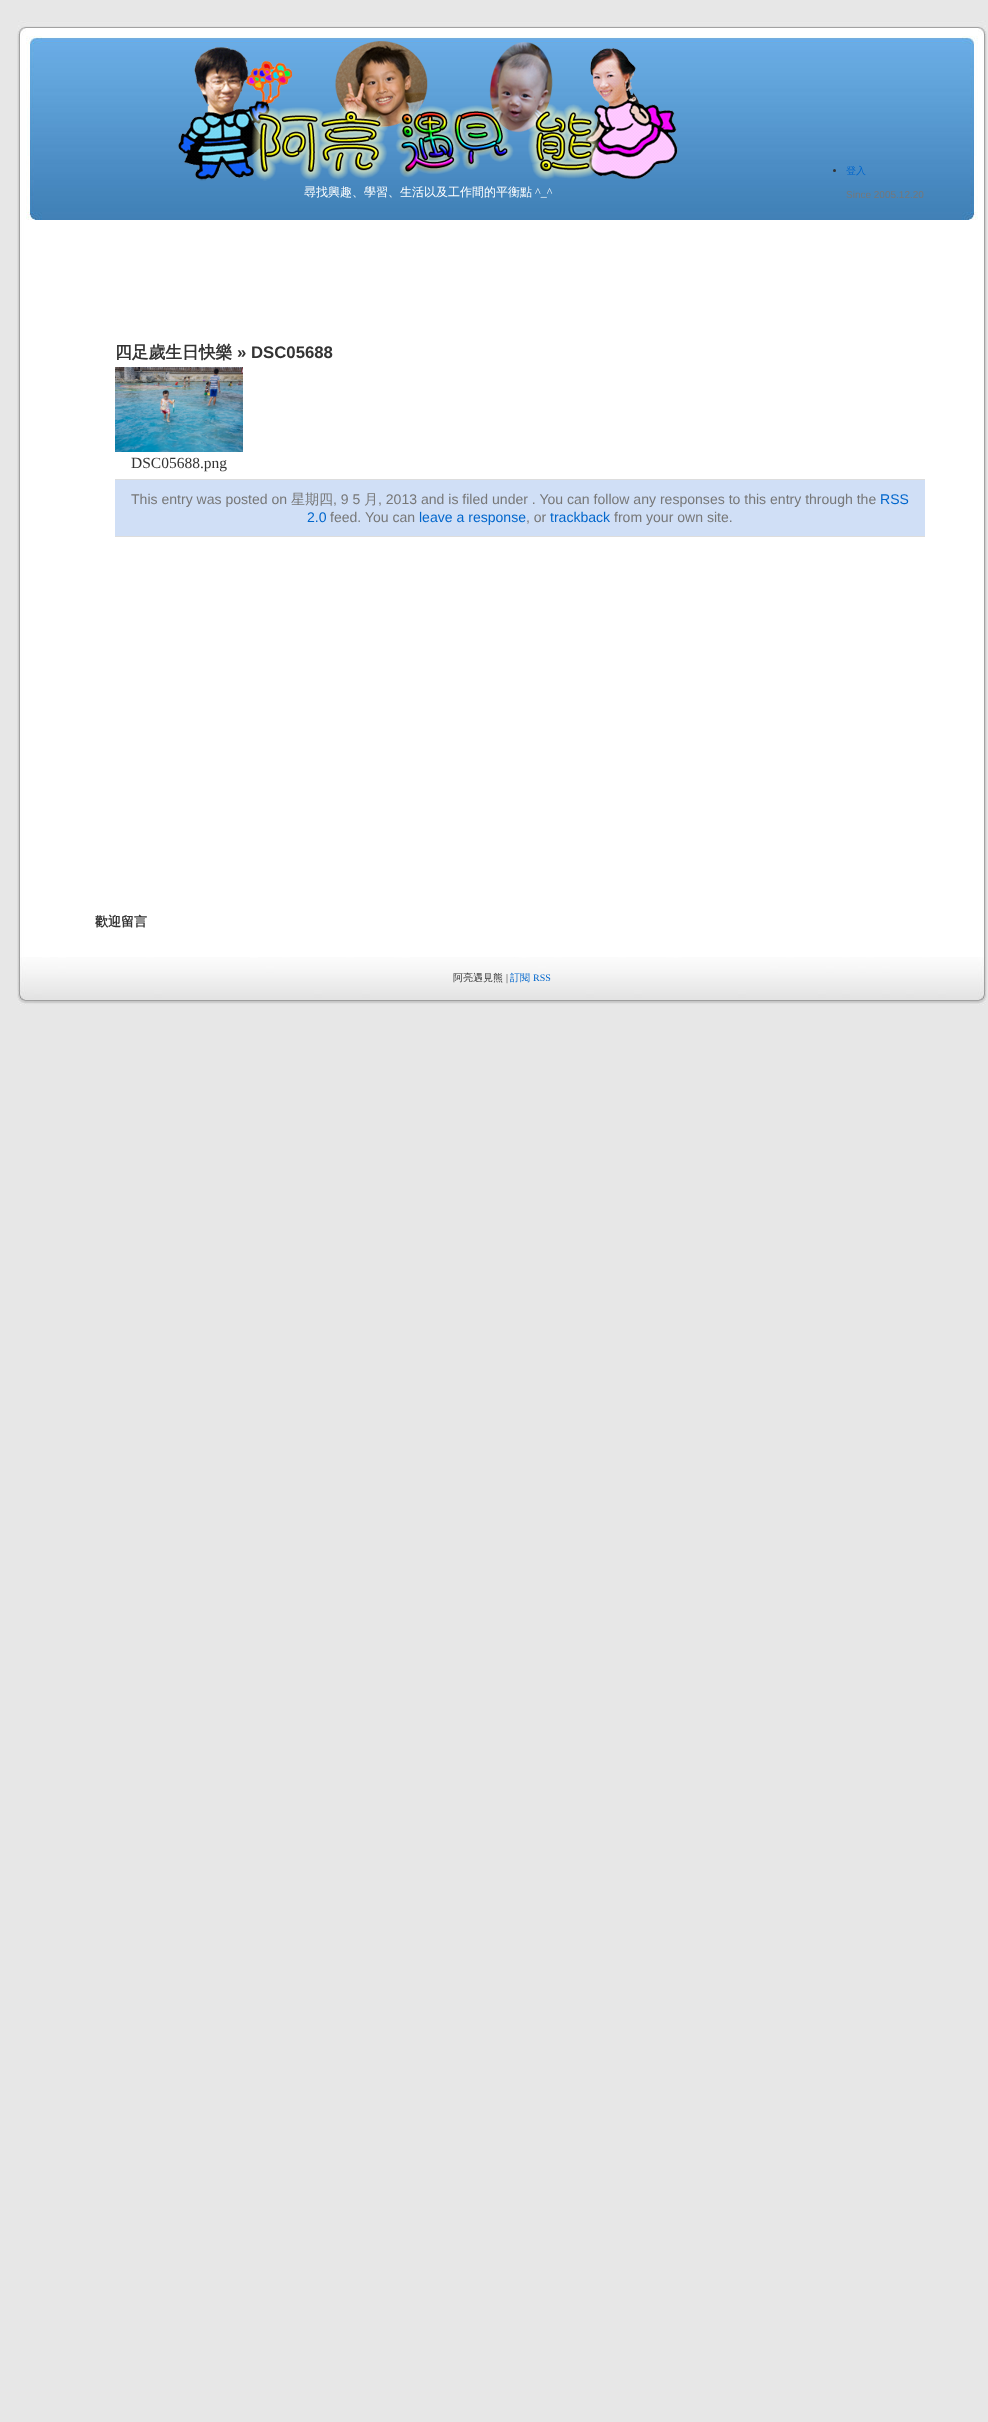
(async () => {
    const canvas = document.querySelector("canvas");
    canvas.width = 988;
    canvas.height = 2422;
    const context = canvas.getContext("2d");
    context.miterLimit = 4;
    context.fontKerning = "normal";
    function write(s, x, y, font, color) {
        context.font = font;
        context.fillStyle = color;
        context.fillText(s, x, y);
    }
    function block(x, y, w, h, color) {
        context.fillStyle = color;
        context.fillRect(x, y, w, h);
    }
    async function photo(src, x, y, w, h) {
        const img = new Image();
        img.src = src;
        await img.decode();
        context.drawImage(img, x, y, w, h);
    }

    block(0, 0, 988, 2422, "rgb(231, 231, 231)");
    await photo("media/1.png", 17, 220, 970, 737);
    await photo("media/2.png", 17, 20, 970, 200);
    await photo("media/3.png", 178, 41, 500, 140);
    write("尋找興趣、學習、生活以及工作間的平衡點", 304, 196, "500 12px WenQuanYi Zen Hei", "rgb(255, 255, 255)");
    write("^_^", 535, 196, "12px Liberation Serif", "rgb(255, 255, 255)");
    context.fillStyle = "rgb(51, 51, 51)";
    context.beginPath();
    context.arc(834.5, 170.5, 1.5, 0, Math.PI * 2);
    context.fill();
    write("登入", 846, 174, "500 10px WenQuanYi Zen Hei", "rgb(0, 102, 204)");
    write("Since 2005.12.20", 846, 198, "10px Liberation Sans", "rgb(119, 119, 119)");
    write("四足歲生日快樂", 115, 358, "bold 16.75px WenQuanYi Zen Hei", "rgb(51, 51, 51)");
    write("» DSC05688", 237, 358, "bold 16.75px Liberation Sans", "rgb(51, 51, 51)");
    await photo("media/4.png", 115, 367, 128, 85);
    write("DSC05688.png", 131, 468, "15.5px Liberation Serif", "rgb(51, 51, 51)");
    block(115, 480, 810, 56, "rgb(208, 223, 246)");
    block(115, 479, 810, 1, "rgb(221, 221, 221)");
    block(115, 536, 810, 1, "rgb(221, 221, 221)");
    write("This entry was posted on", 131, 504, "14.05px Liberation Sans", "rgb(119, 119, 119)");
    write("星期四", 291, 504, "500 14.05px WenQuanYi Zen Hei", "rgb(119, 119, 119)");
    write(", 9 5", 333, 504, "14.05px Liberation Sans", "rgb(119, 119, 119)");
    write("月", 364, 504, "500 14.05px WenQuanYi Zen Hei", "rgb(119, 119, 119)");
    write(", 2013 and is filed under . You can follow any responses to this entry through the", 378, 504, "14.05px Liberation Sans", "rgb(119, 119, 119)");
    write("RSS", 880, 504, "14.05px Liberation Sans", "rgb(0, 102, 204)");
    write("2.0", 307, 522, "14.05px Liberation Sans", "rgb(0, 102, 204)");
    write("feed. You can", 330, 522, "14.05px Liberation Sans", "rgb(119, 119, 119)");
    write("leave a response", 419, 522, "14.05px Liberation Sans", "rgb(0, 102, 204)");
    write(", or", 526, 522, "14.05px Liberation Sans", "rgb(119, 119, 119)");
    write("trackback", 550, 522, "14.05px Liberation Sans", "rgb(0, 102, 204)");
    write("from your own site.", 614, 522, "14.05px Liberation Sans", "rgb(119, 119, 119)");
    write("歡迎留言", 95, 926, "bold 13px WenQuanYi Zen Hei", "rgb(51, 51, 51)");
    await photo("media/5.png", 17, 957, 970, 48);
    write("阿亮遇見熊", 453, 981, "500 10px WenQuanYi Zen Hei", "rgb(51, 51, 51)");
    write("|", 506, 981, "10px Liberation Serif", "rgb(51, 51, 51)");
    write("訂閱", 510, 981, "500 10px WenQuanYi Zen Hei", "rgb(0, 102, 204)");
    write("RSS", 533, 981, "10px Liberation Serif", "rgb(0, 102, 204)");
})();
